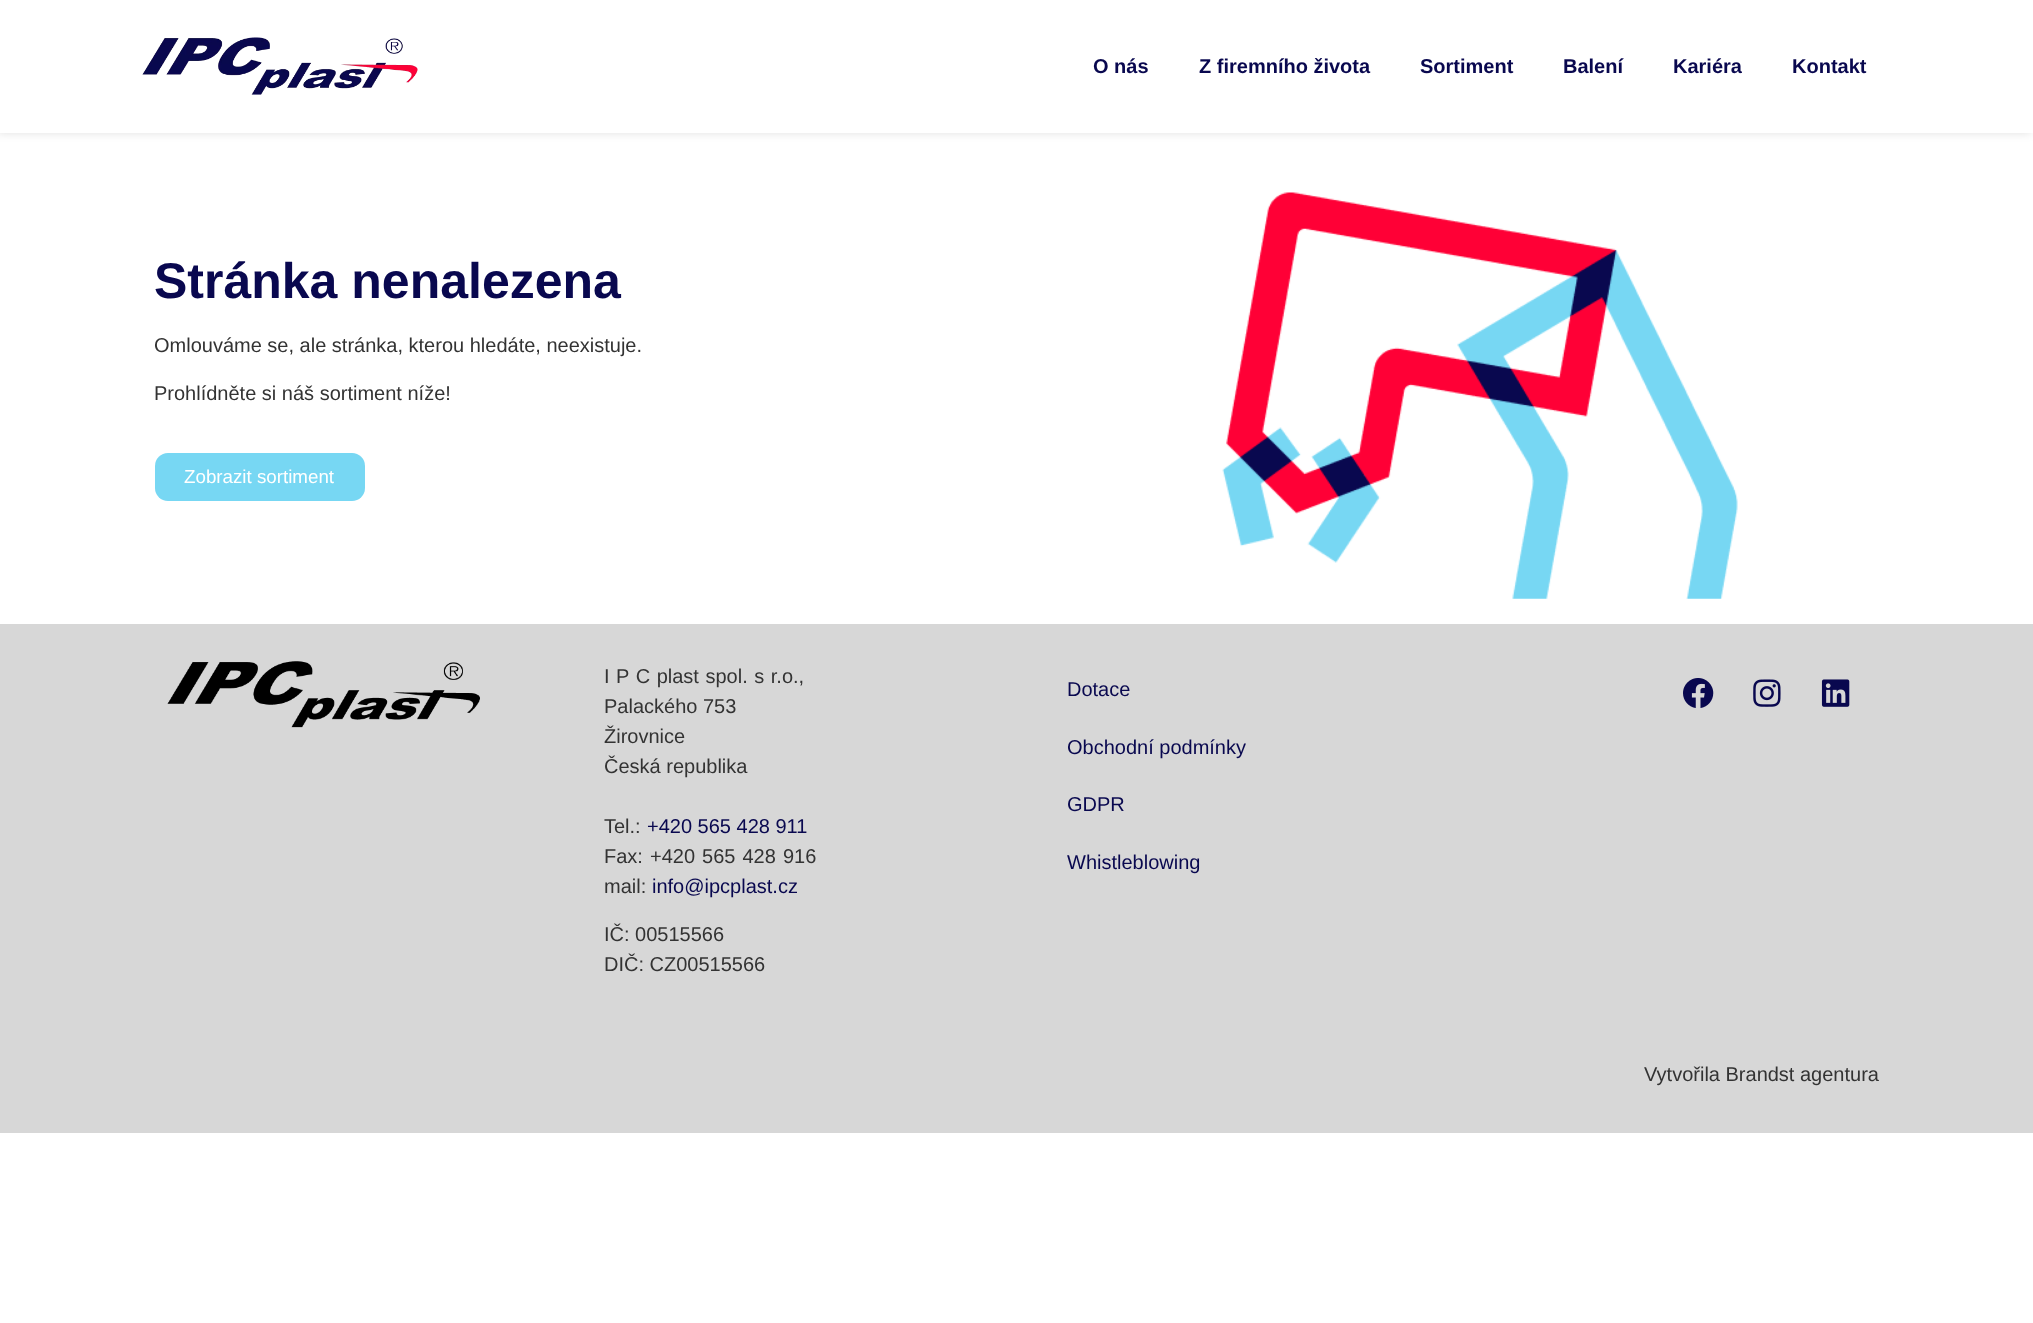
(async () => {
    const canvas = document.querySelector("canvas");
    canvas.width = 2033;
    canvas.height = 1323;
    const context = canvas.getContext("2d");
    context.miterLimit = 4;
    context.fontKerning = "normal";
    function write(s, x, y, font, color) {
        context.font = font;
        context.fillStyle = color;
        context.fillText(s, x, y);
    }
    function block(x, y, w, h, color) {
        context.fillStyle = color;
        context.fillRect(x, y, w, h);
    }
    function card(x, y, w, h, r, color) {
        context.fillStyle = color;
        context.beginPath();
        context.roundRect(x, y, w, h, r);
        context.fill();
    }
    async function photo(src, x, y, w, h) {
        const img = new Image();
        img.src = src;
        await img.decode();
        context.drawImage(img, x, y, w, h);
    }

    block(0, 0, 2033, 1323, "rgb(255, 255, 255)");
    context.fillStyle = "rgba(0, 0, 0, 0.12)";
    context.filter = "blur(5px)";
    context.beginPath();
    context.rect(-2, 0, 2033, 133);
    context.fill();
    context.filter = "none";
    block(0, 0, 2033, 133, "rgb(255, 255, 255)");
    await photo("media/1.png", 142, 37, 276, 58);
    write("O nás", 1093, 73, "bold 20px Liberation Sans", "rgb(9, 8, 79)");
    write("Z firemního života", 1199, 73, "bold 20px Liberation Sans", "rgb(9, 8, 79)");
    write("Sortiment", 1420, 73, "bold 20px Liberation Sans", "rgb(9, 8, 79)");
    write("Balení", 1563, 73, "bold 20px Liberation Sans", "rgb(9, 8, 79)");
    write("Kariéra", 1673, 73, "bold 20px Liberation Sans", "rgb(9, 8, 79)");
    write("Kontakt", 1792, 73, "bold 20px Liberation Sans", "rgb(9, 8, 79)");
    write("Stránka nenalezena", 154, 298, "bold 50px Liberation Sans", "rgb(9, 8, 79)");
    write("Omlouváme se, ale stránka, kterou hledáte, neexistuje.", 154, 352, "20px Liberation Sans", "rgb(51, 51, 51)");
    write("Prohlídněte si náš sortiment níže!", 154, 400, "20px Liberation Sans", "rgb(51, 51, 51)");
    card(155, 453, 210, 48, 13, "rgb(119, 215, 243)");
    write("Zobrazit sortiment", 184, 483, "18.75px Liberation Sans", "rgb(255, 255, 255)");
    await photo("media/2.png", 1222, 192, 516, 407);
    block(0, 624, 2033, 509, "rgb(215, 215, 215)");
    await photo("media/3.png", 167, 661, 313, 67);
    context.wordSpacing = "1px";
    write("I P C plast spol. s r.o.,", 604, 683, "20px Liberation Sans", "rgb(51, 51, 51)");
    context.wordSpacing = "0px";
    write("Palackého 753", 604, 713, "20px Liberation Sans", "rgb(51, 51, 51)");
    write("Žirovnice", 604, 743, "20px Liberation Sans", "rgb(51, 51, 51)");
    write("Česká republika", 604, 773, "20px Liberation Sans", "rgb(51, 51, 51)");
    write("Tel.:", 604, 833, "20px Liberation Sans", "rgb(51, 51, 51)");
    write("+420 565 428 911", 647, 833, "20px Liberation Sans", "rgb(9, 8, 79)");
    context.wordSpacing = "1.5px";
    write("Fax: +420 565 428 916", 604, 863, "20px Liberation Sans", "rgb(51, 51, 51)");
    context.wordSpacing = "0px";
    write("mail:", 604, 893, "20px Liberation Sans", "rgb(51, 51, 51)");
    write("info@ipcplast.cz", 652, 893, "20px Liberation Sans", "rgb(9, 8, 79)");
    write("IČ: 00515566", 604, 941, "20px Liberation Sans", "rgb(51, 51, 51)");
    write("DIČ: CZ00515566", 604, 971, "20px Liberation Sans", "rgb(51, 51, 51)");
    write("Dotace", 1067, 696, "20px Liberation Sans", "rgb(9, 8, 79)");
    write("Obchodní podmínky", 1067, 754, "20px Liberation Sans", "rgb(9, 8, 79)");
    write("GDPR", 1067, 811, "20px Liberation Sans", "rgb(9, 8, 79)");
    write("Whistleblowing", 1067, 869, "20px Liberation Sans", "rgb(9, 8, 79)");
    await photo("media/4.png", 1683, 678, 31, 30);
    await photo("media/5.png", 1753, 679, 28, 28);
    await photo("media/6.png", 1821, 679, 29, 28);
    write("Vytvořila Brandst agentura", 1644, 1081, "20px Liberation Sans", "rgb(51, 51, 51)");
})();
